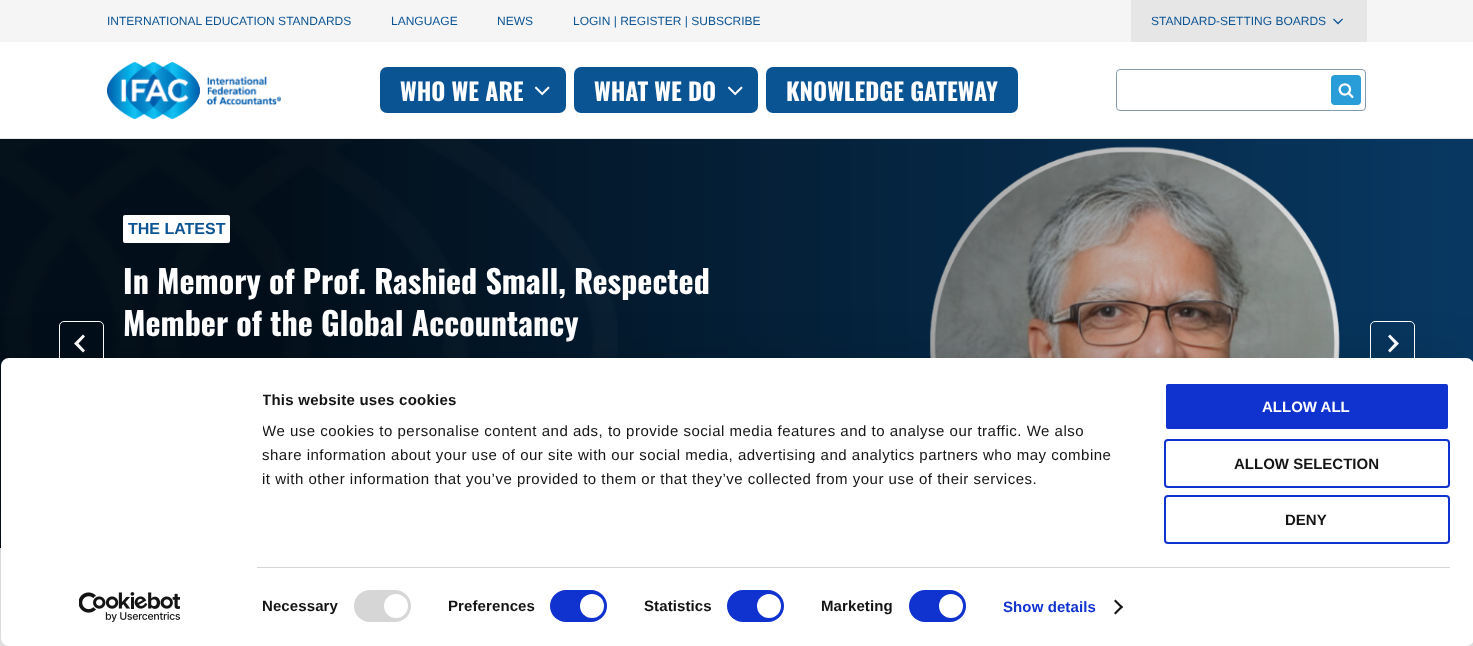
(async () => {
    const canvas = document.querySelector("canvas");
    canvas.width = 1473;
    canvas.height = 646;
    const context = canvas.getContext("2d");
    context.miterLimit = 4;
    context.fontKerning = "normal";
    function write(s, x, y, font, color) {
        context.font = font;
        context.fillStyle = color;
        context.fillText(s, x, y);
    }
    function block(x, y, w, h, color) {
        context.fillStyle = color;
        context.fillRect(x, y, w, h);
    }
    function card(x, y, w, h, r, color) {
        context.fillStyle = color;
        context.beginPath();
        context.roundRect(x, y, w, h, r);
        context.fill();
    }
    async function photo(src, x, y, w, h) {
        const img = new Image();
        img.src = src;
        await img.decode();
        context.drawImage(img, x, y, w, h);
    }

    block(0, 0, 1473, 646, "rgb(255, 255, 255)");
    block(0, 138, 1473, 1, "rgb(230, 230, 230)");
    block(0, 0, 1473, 42, "rgb(245, 245, 245)");
    write("INTERNATIONAL EDUCATION STANDARDS", 107, 25, "12px Liberation Sans", "rgb(11, 84, 148)");
    write("LANGUAGE", 391, 25, "12px Liberation Sans", "rgb(11, 84, 148)");
    write("NEWS", 497, 25, "12px Liberation Sans", "rgb(11, 84, 148)");
    write("LOGIN | REGISTER | SUBSCRIBE", 573, 25, "12px Liberation Sans", "rgb(11, 84, 148)");
    block(1131, 0, 236, 42, "rgb(230, 230, 230)");
    write("STANDARD-SETTING BOARDS", 1151, 25, "12px Liberation Sans", "rgb(11, 84, 148)");
    await photo("media/1.png", 1333, 18, 10, 7);
    await photo("media/2.png", 107, 62, 174, 57);
    card(380, 67, 186, 46, 7, "rgb(11, 84, 148)");
    write("WHO WE ARE", 400, 101, "bold 24px Oswald", "rgb(255, 255, 255)");
    await photo("media/3.png", 534, 86, 16, 10);
    card(574, 67, 184, 46, 7, "rgb(11, 84, 148)");
    write("WHAT WE DO", 594, 101, "bold 24px Oswald", "rgb(255, 255, 255)");
    await photo("media/3.png", 727, 86, 16, 10);
    card(766, 67, 252, 46, 7, "rgb(11, 84, 148)");
    write("KNOWLEDGE GATEWAY", 786, 101, "bold 24px Oswald", "rgb(255, 255, 255)");
    context.beginPath();
    context.roundRect(1116.5, 69.5, 249, 41, 3.5);
    context.strokeStyle = "rgb(131, 155, 176)";
    context.stroke();
    card(1331, 75, 30, 30, 4, "rgb(40, 157, 216)");
    await photo("media/4.png", 1338, 83, 16, 15);
    await photo("media/5.png", 0, 139, 1473, 409);
    card(123, 215, 107, 28, 2, "rgb(255, 255, 255)");
    write("THE LATEST", 128, 234, "bold 16px Liberation Sans", "rgb(11, 84, 148)");
    write("In Memory of Prof. Rashied Small, Respected", 123, 294, "bold 32px Oswald", "rgb(255, 255, 255)");
    write("Member of the Global Accountancy", 123, 336, "bold 32px Oswald", "rgb(255, 255, 255)");
    context.beginPath();
    context.moveTo(99, 365.5);
    context.lineTo(64, 365.5);
    context.bezierCurveTo(61.5, 365.5, 59.5, 363.5, 59.5, 361);
    context.lineTo(59.5, 326);
    context.bezierCurveTo(59.5, 323.5, 61.5, 321.5, 64, 321.5);
    context.lineTo(99, 321.5);
    context.bezierCurveTo(101.5, 321.5, 103.5, 323.5, 103.5, 326);
    context.lineTo(103.5, 361);
    context.bezierCurveTo(103.5, 363.5, 101.5, 365.5, 99, 365.5);
    context.closePath();
    context.strokeStyle = "rgb(255, 255, 255)";
    context.stroke();
    context.beginPath();
    context.moveTo(83, 352.5);
    context.lineTo(85, 350.5);
    context.lineTo(78.5, 343.5);
    context.lineTo(85, 336.5);
    context.lineTo(83, 334.5);
    context.lineTo(74, 343.5);
    context.closePath();
    context.fill();
    context.beginPath();
    context.roundRect(1370.5, 321.5, 44, 44, 4.5);
    context.stroke();
    context.beginPath();
    context.moveTo(1390, 334.5);
    context.lineTo(1388, 336.5);
    context.lineTo(1394.5, 343.5);
    context.lineTo(1388, 350.5);
    context.lineTo(1390, 352.5);
    context.lineTo(1399, 343.5);
    context.closePath();
    context.fill();
    context.fillStyle = "rgba(0, 0, 0, 0.3)";
    context.filter = "blur(35px)";
    context.beginPath();
    context.roundRect(1, 388, 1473, 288, 8);
    context.fill();
    context.filter = "none";
    card(1, 358, 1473, 288, 8, "rgb(255, 255, 255)");
    context.save();
    context.beginPath();
    context.rect(263, 388, 872, 150);
    context.clip();
    context.letterSpacing = "0.25px";
    write("This website uses cookies", 262, 405, "bold 15px Liberation Sans", "rgb(20, 20, 20)");
    context.letterSpacing = "0.5px";
    write("We use cookies to personalise content and ads, to provide social media features and to analyse our traffic. We also", 262, 436, "15px Liberation Sans", "rgb(20, 20, 20)");
    context.restore();
    context.letterSpacing = "0.5px";
    write("share information about your use of our site with our social media, advertising and analytics partners who may combine", 262, 460, "15px Liberation Sans", "rgb(20, 20, 20)");
    write("it with other information that you’ve provided to them or that they’ve collected from your use of their services.", 262, 484, "15px Liberation Sans", "rgb(20, 20, 20)");
    block(257, 567, 1193, 1, "rgb(214, 214, 214)");
    context.letterSpacing = "0.1px";
    write("Necessary", 262, 611, "bold 15px Liberation Sans", "rgb(20, 20, 20)");
    card(354, 590, 57, 32, 16, "rgb(214, 214, 214)");
    context.fillStyle = "rgb(255, 255, 255)";
    context.beginPath();
    context.arc(396, 606, 12, 0, Math.PI * 2);
    context.fill();
    write("Preferences", 448, 611, "bold 15px Liberation Sans", "rgb(20, 20, 20)");
    card(550, 590, 57, 32, 16, "rgb(16, 50, 207)");
    context.fillStyle = "rgb(255, 255, 255)";
    context.beginPath();
    context.arc(592, 606, 12, 0, Math.PI * 2);
    context.fill();
    write("Statistics", 644, 611, "bold 15px Liberation Sans", "rgb(20, 20, 20)");
    card(727, 590, 57, 32, 16, "rgb(16, 50, 207)");
    context.fillStyle = "rgb(255, 255, 255)";
    context.beginPath();
    context.arc(769, 606, 12, 0, Math.PI * 2);
    context.fill();
    write("Marketing", 821, 611, "bold 15px Liberation Sans", "rgb(20, 20, 20)");
    card(909, 590, 57, 32, 16, "rgb(16, 50, 207)");
    context.fillStyle = "rgb(255, 255, 255)";
    context.beginPath();
    context.arc(951, 606, 12, 0, Math.PI * 2);
    context.fill();
    write("Show details", 1003, 612, "bold 15px Liberation Sans", "rgb(16, 50, 207)");
    context.fillStyle = "rgb(20, 20, 20)";
    context.beginPath();
    context.moveTo(1115.5, 599.5);
    context.lineTo(1123, 607);
    context.lineTo(1121.5, 608.5);
    context.lineTo(1114, 601);
    context.closePath();
    context.fill();
    context.beginPath();
    context.moveTo(1121.5, 605.5);
    context.lineTo(1123, 607);
    context.lineTo(1115.5, 614.5);
    context.lineTo(1114, 613);
    context.closePath();
    context.fill();
    context.fillStyle = "rgb(16, 50, 207)";
    context.beginPath();
    context.roundRect(1165, 383, 284, 47, 3);
    context.fill();
    context.lineWidth = 2;
    context.stroke();
    context.letterSpacing = "0px";
    write("ALLOW ALL", 1262, 412, "bold 15px Liberation Sans", "rgb(255, 255, 255)");
    context.beginPath();
    context.roundRect(1165, 440, 284, 47, 3);
    context.strokeStyle = "rgb(16, 50, 207)";
    context.stroke();
    write("ALLOW SELECTION", 1234, 469, "bold 15px Liberation Sans", "rgb(20, 20, 20)");
    context.beginPath();
    context.roundRect(1165, 496, 284, 47, 3);
    context.stroke();
    write("DENY", 1285, 525, "bold 15px Liberation Sans", "rgb(20, 20, 20)");
    await photo("media/6.png", 79, 592, 101, 30);
})();
